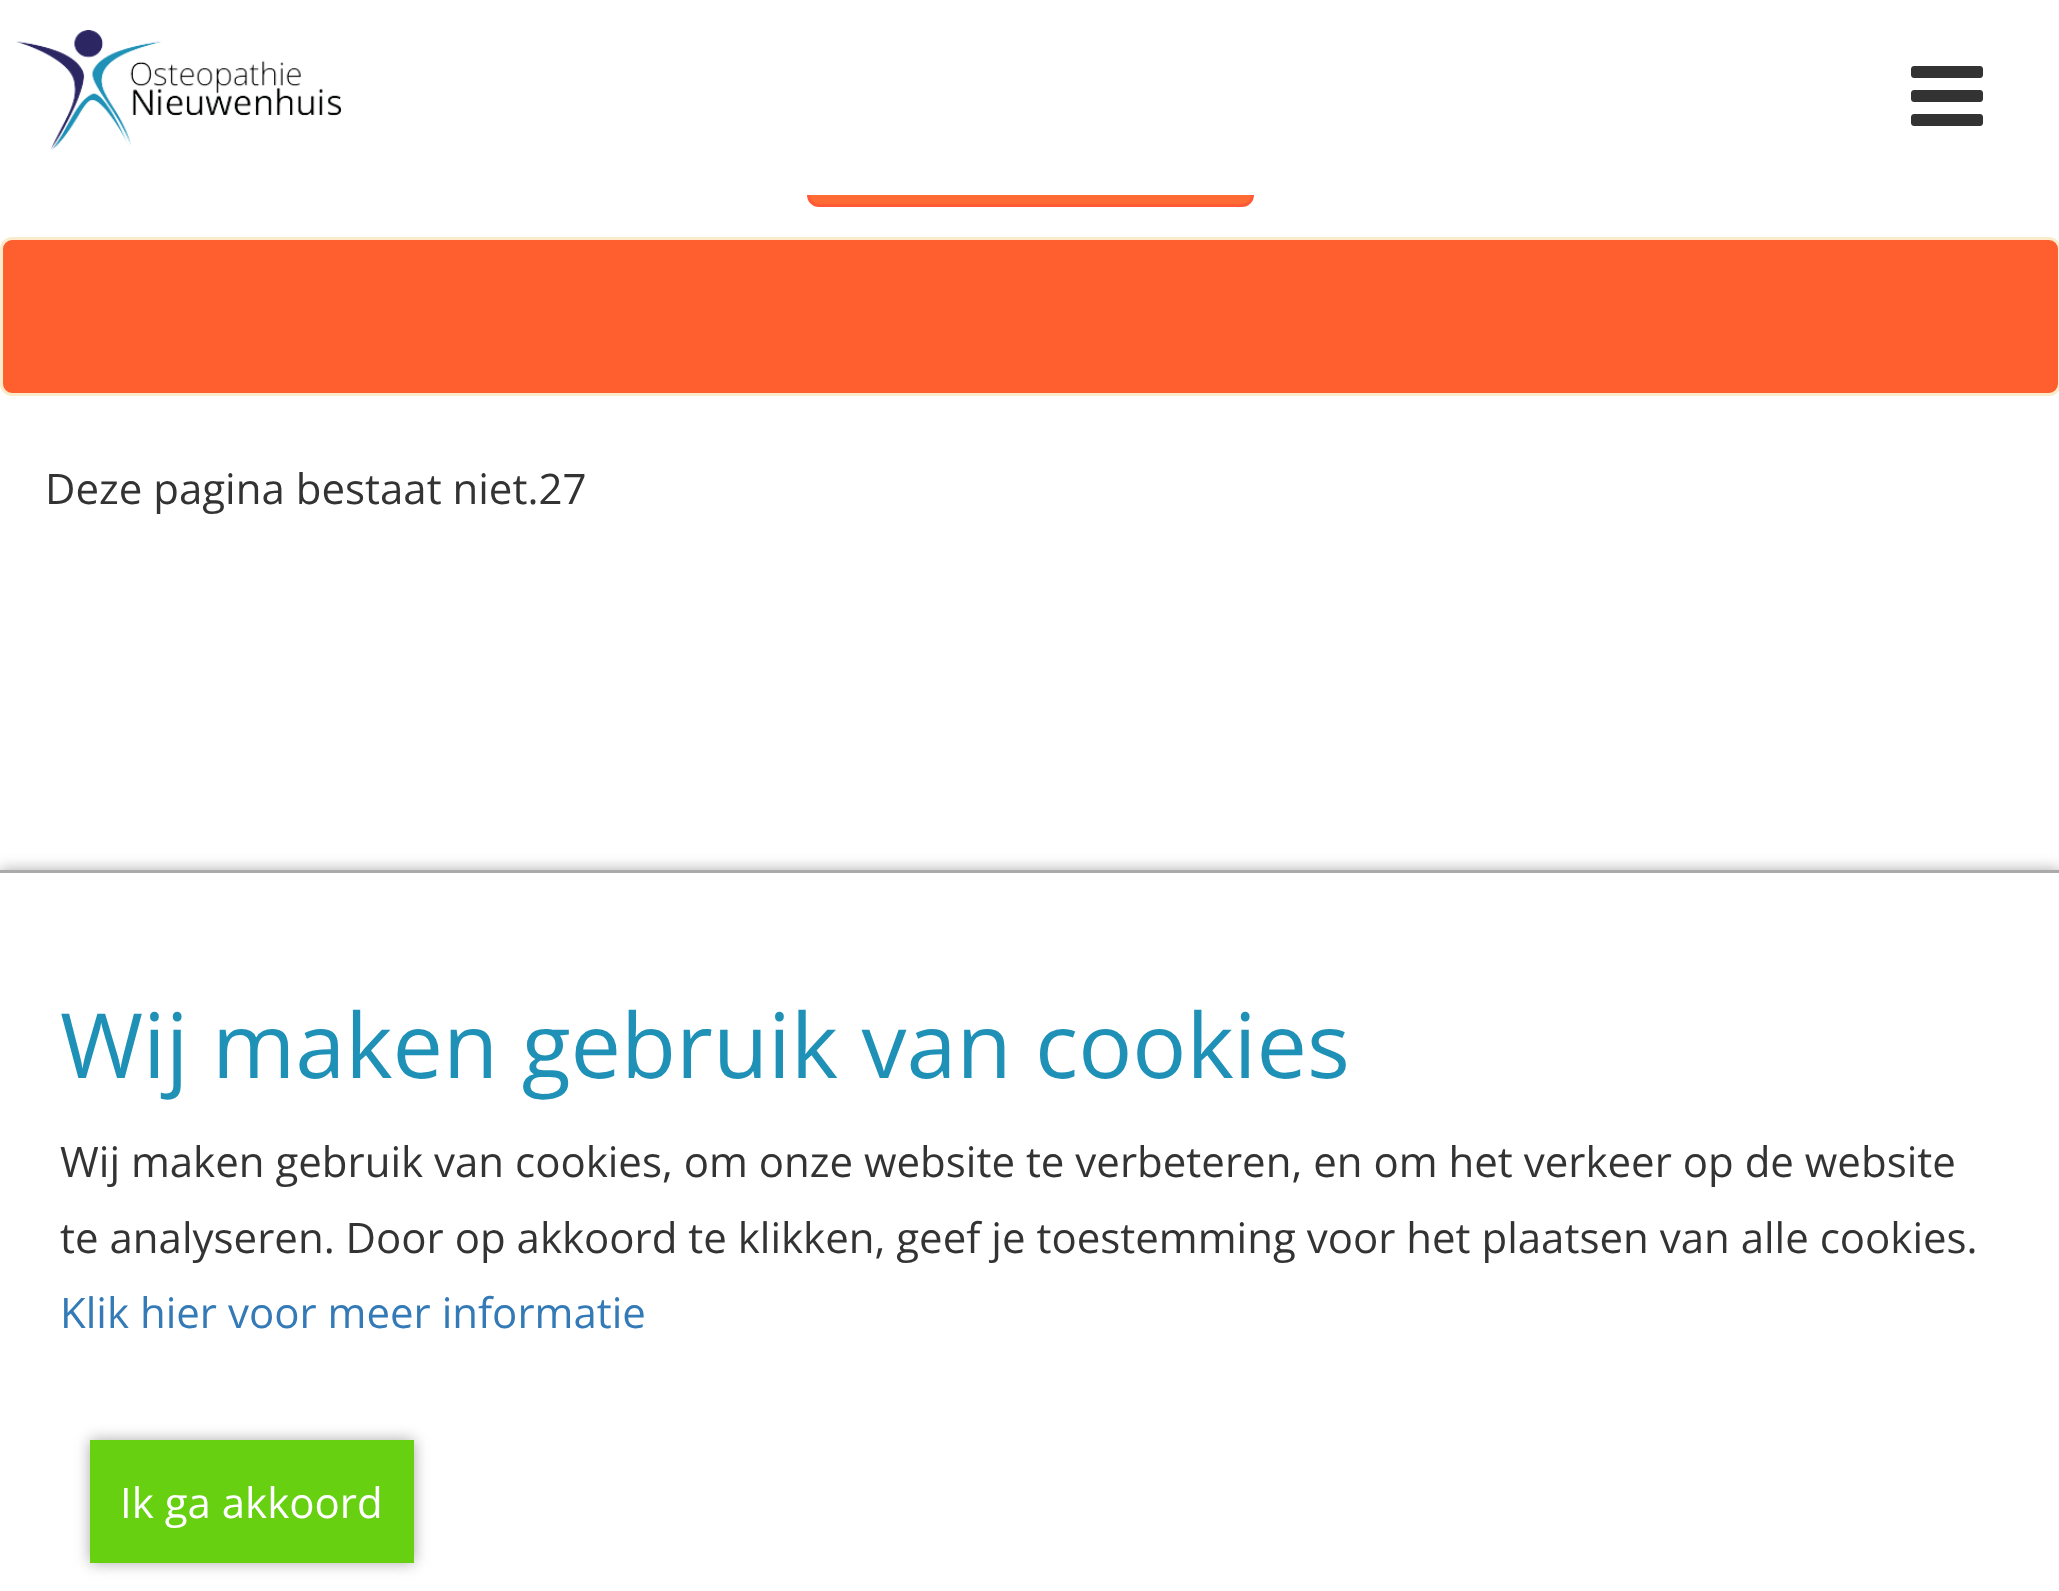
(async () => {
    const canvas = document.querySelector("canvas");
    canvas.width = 2059;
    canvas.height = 1591;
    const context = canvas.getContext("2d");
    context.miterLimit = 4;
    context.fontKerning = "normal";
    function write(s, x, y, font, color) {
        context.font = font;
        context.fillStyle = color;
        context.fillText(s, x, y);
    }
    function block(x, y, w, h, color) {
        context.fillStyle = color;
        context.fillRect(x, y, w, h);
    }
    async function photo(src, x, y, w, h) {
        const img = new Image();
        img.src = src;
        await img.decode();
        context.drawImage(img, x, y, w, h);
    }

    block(0, 0, 2059, 1591, "rgb(255, 255, 255)");
    context.fillStyle = "rgb(255, 107, 53)";
    context.beginPath();
    context.roundRect(808.5, 106.5, 444, 99, 10.5);
    context.fill();
    context.strokeStyle = "rgb(255, 90, 53)";
    context.lineWidth = 3;
    context.stroke();
    block(807, 105, 447, 90, "rgb(255, 255, 255)");
    await photo("media/1.png", 15, 30, 327, 120);
    await photo("media/2.png", 1911, 66, 72, 60);
    context.fillStyle = "rgb(255, 95, 47)";
    context.beginPath();
    context.roundRect(1.5, 238.5, 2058, 156, 10.5);
    context.fill();
    context.strokeStyle = "rgb(250, 235, 204)";
    context.stroke();
    write("Deze pagina bestaat niet.27", 45, 504, "42px Open Sans", "rgb(51, 51, 51)");
    context.fillStyle = "rgb(170, 170, 170)";
    context.filter = "blur(7.5px)";
    context.beginPath();
    context.rect(0, 870, 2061, 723);
    context.fill();
    context.filter = "none";
    block(0, 873, 2059, 718, "rgb(255, 255, 255)");
    block(0, 870, 2059, 3, "rgb(170, 170, 170)");
    write("Wij maken gebruik van cookies", 60, 1078, "90px Open Sans", "rgb(31, 145, 183)");
    write("Wij maken gebruik van cookies, om onze website te verbeteren, en om het verkeer op de website", 60, 1177, "42px Open Sans", "rgb(51, 51, 51)");
    write("te analyseren. Door op akkoord te klikken, geef je toestemming voor het plaatsen van alle cookies.", 60, 1253, "42px Open Sans", "rgb(51, 51, 51)");
    write("Klik hier voor meer informatie", 60, 1328, "42px Open Sans", "rgb(51, 122, 183)");
    context.fillStyle = "rgb(170, 170, 170)";
    context.filter = "blur(7.5px)";
    context.beginPath();
    context.rect(90, 1440, 324, 123);
    context.fill();
    context.filter = "none";
    block(90, 1440, 324, 123, "rgb(103, 208, 17)");
    write("Ik ga akkoord", 120, 1518, "42px Open Sans", "rgb(255, 255, 255)");
})();
